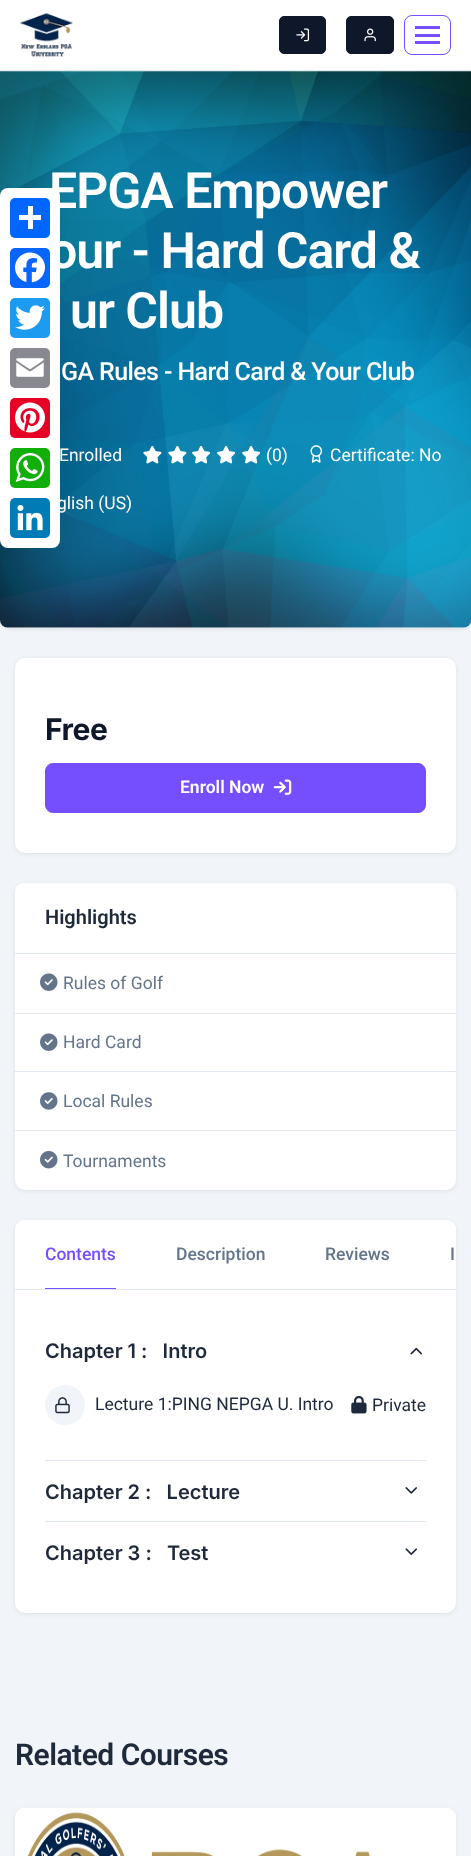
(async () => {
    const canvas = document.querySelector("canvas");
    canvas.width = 471;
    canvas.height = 1856;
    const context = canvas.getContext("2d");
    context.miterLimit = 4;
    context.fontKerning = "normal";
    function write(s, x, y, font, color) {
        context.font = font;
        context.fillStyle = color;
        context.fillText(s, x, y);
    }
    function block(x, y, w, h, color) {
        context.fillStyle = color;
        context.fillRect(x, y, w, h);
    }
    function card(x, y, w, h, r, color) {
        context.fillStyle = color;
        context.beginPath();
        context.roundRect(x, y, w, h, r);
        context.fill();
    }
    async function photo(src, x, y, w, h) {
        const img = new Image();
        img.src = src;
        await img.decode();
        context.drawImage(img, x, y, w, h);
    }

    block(0, 0, 471, 1856, "rgb(241, 245, 249)");
    context.fillStyle = "rgba(17, 24, 39, 0.09)";
    context.filter = "blur(2px)";
    context.beginPath();
    context.roundRect(0, 73, 471, 556, 10);
    context.fill();
    context.filter = "none";
    block(0, 0, 471, 70, "rgb(255, 255, 255)");
    block(0, 70, 471, 1, "rgb(226, 232, 240)");
    await photo("media/1.png", 20, 13, 53, 44);
    context.fillStyle = "rgb(15, 23, 42)";
    context.beginPath();
    context.roundRect(279.5, 16.5, 46, 37, 4.5);
    context.fill();
    context.strokeStyle = "rgb(15, 23, 42)";
    context.stroke();
    await photo("media/2.png", 296, 28, 14, 14);
    context.beginPath();
    context.roundRect(346.5, 16.5, 47, 37, 4.5);
    context.fill();
    context.stroke();
    await photo("media/3.png", 364, 28, 12, 14);
    context.beginPath();
    context.roundRect(404.5, 15.5, 46, 39, 7.5);
    context.strokeStyle = "rgb(117, 79, 254)";
    context.stroke();
    block(415, 26, 25, 3, "rgb(117, 79, 254)");
    block(415, 34, 25, 3, "rgb(117, 79, 254)");
    block(415, 41, 25, 3, "rgb(117, 79, 254)");
    card(0, 71, 471, 557, 10, "rgb(255, 255, 255)");
    await photo("media/4.png", 0, 71, 471, 557);
    context.letterSpacing = "-1px";
    write("EPGA Empower", 49, 208, "600 50px Roboto", "rgb(255, 255, 255)");
    write("our - Hard Card &", 49, 268, "600 50px Roboto", "rgb(255, 255, 255)");
    write("ur Club", 70, 328, "600 50px Roboto", "rgb(255, 255, 255)");
    context.letterSpacing = "-0.6px";
    write("GA Rules - Hard Card & Your Club", 61, 380, "500 25px Roboto", "rgb(255, 255, 255)");
    context.letterSpacing = "0px";
    write("Enrolled", 59, 461, "17.5px Roboto", "rgb(255, 255, 255)");
    await photo("media/5.png", 143, 446, 19, 18);
    await photo("media/6.png", 168, 446, 19, 18);
    await photo("media/7.png", 192, 446, 19, 18);
    await photo("media/8.png", 217, 446, 19, 18);
    await photo("media/9.png", 242, 446, 19, 18);
    write("(0)", 266, 461, "17.5px Roboto", "rgb(255, 255, 255)");
    await photo("media/10.png", 310, 445, 13, 18);
    write("Certificate: No", 330, 461, "17.5px Roboto", "rgb(255, 255, 255)");
    write("glish (US)", 57, 509, "17.5px Roboto", "rgb(255, 255, 255)");
    context.fillStyle = "rgba(17, 24, 39, 0.09)";
    context.filter = "blur(2px)";
    context.beginPath();
    context.roundRect(15, 659, 441, 195, 10);
    context.fill();
    context.filter = "none";
    card(15, 658, 441, 195, 10, "rgb(255, 255, 255)");
    context.letterSpacing = "-0.5px";
    write("Free", 45, 740, "bold 30px Inter", "rgb(15, 23, 42)");
    context.fillStyle = "rgb(117, 79, 254)";
    context.beginPath();
    context.roundRect(45.5, 763.5, 380, 49, 7.5);
    context.fill();
    context.stroke();
    context.letterSpacing = "0px";
    write("Enroll Now", 180, 793, "600 17.5px Roboto", "rgb(255, 255, 255)");
    await photo("media/11.png", 273, 779, 19, 16);
    context.fillStyle = "rgba(17, 24, 39, 0.09)";
    context.filter = "blur(2px)";
    context.beginPath();
    context.roundRect(15, 884, 441, 307, 10);
    context.fill();
    context.filter = "none";
    card(15, 883, 441, 307, 10, "rgb(255, 255, 255)");
    context.beginPath();
    context.roundRect(15, 883, 441, 71, [9, 9, 0, 0]);
    context.fill();
    block(15, 953, 441, 1, "rgb(226, 232, 240)");
    write("Highlights", 45, 924, "600 20px Roboto", "rgb(30, 41, 59)");
    block(15, 1013, 441, 1, "rgb(226, 232, 240)");
    await photo("media/12.png", 40, 973, 18, 18);
    write("Rules of Golf", 63, 989, "17.5px Roboto", "rgb(100, 116, 139)");
    block(15, 1071, 441, 1, "rgb(226, 232, 240)");
    await photo("media/12.png", 40, 1033, 18, 18);
    write("Hard Card", 63, 1048, "17.5px Roboto", "rgb(100, 116, 139)");
    block(15, 1130, 441, 1, "rgb(226, 232, 240)");
    await photo("media/13.png", 40, 1092, 18, 18);
    write("Local Rules", 63, 1107, "17.5px Roboto", "rgb(100, 116, 139)");
    await photo("media/14.png", 40, 1150, 18, 19);
    write("Tournaments", 63, 1167, "17.5px Roboto", "rgb(100, 116, 139)");
    context.fillStyle = "rgba(17, 24, 39, 0.09)";
    context.filter = "blur(2px)";
    context.beginPath();
    context.roundRect(15, 1221, 441, 393, 10);
    context.fill();
    context.filter = "none";
    card(15, 1220, 441, 393, 10, "rgb(255, 255, 255)");
    context.beginPath();
    context.roundRect(15, 1220, 441, 70, [9, 9, 0, 0]);
    context.fill();
    block(15, 1289, 441, 1, "rgb(226, 232, 240)");
    block(45, 1288, 71, 1, "rgb(117, 79, 254)");
    write("Contents", 45, 1260, "500 17.5px Roboto", "rgb(117, 79, 254)");
    write("Description", 176, 1260, "500 17.5px Roboto", "rgb(100, 116, 139)");
    write("Reviews", 325, 1260, "500 17.5px Roboto", "rgb(100, 116, 139)");
    write("I", 450, 1260, "500 17.5px Roboto", "rgb(100, 116, 139)");
    block(45, 1460, 381, 1, "rgb(226, 232, 240)");
    write("Chapter 1 :   Intro", 45, 1358, "600 20px Inter", "rgb(30, 41, 59)");
    await photo("media/15.png", 410, 1347, 12, 8);
    context.fillStyle = "rgb(241, 245, 249)";
    context.beginPath();
    context.arc(65, 1405, 20, 0, Math.PI * 2);
    context.fill();
    await photo("media/16.png", 55, 1397, 15, 17);
    write("Lecture 1:PING NEPGA U. Intro", 95, 1410, "17.5px Roboto", "rgb(30, 41, 59)");
    await photo("media/17.png", 351, 1395, 16, 19);
    write("Private", 372, 1411, "17.5px Roboto", "rgb(30, 41, 59)");
    block(45, 1521, 381, 1, "rgb(226, 232, 240)");
    write("Chapter 2 :   Lecture", 45, 1499, "600 20px Inter", "rgb(30, 41, 59)");
    await photo("media/18.png", 405, 1487, 12, 7);
    write("Chapter 3 :   Test", 45, 1560, "600 20px Inter", "rgb(30, 41, 59)");
    await photo("media/19.png", 405, 1548, 12, 7);
    context.letterSpacing = "-0.5px";
    write("Related Courses", 15, 1765, "600 30px Roboto", "rgb(30, 41, 59)");
    context.fillStyle = "rgba(17, 24, 39, 0.09)";
    context.filter = "blur(2px)";
    context.beginPath();
    context.roundRect(15, 1809, 441, 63, 10);
    context.fill();
    context.filter = "none";
    await photo("media/20.png", 15, 1807, 441, 49);
    card(0, 188, 60, 360, 8, "rgb(255, 255, 255)");
    card(10, 198, 40, 40, 5, "rgb(1, 102, 255)");
    block(28, 206, 5, 23, "rgb(255, 255, 255)");
    block(19, 215, 22, 5, "rgb(255, 255, 255)");
    card(10, 248, 40, 40, 5, "rgb(8, 102, 255)");
    await photo("media/21.png", 15, 252, 30, 31);
    card(10, 298, 40, 40, 5, "rgb(29, 155, 240)");
    await photo("media/22.png", 15, 305, 30, 25);
    card(10, 348, 40, 40, 5, "rgb(136, 137, 144)");
    await photo("media/23.png", 16, 358, 28, 19);
    card(10, 398, 40, 40, 5, "rgb(230, 0, 35)");
    await photo("media/24.png", 15, 402, 30, 31);
    card(10, 448, 40, 40, 5, "rgb(18, 175, 10)");
    await photo("media/25.png", 15, 453, 30, 29);
    card(10, 498, 40, 40, 5, "rgb(0, 123, 181)");
    await photo("media/26.png", 17, 504, 26, 27);
})();
